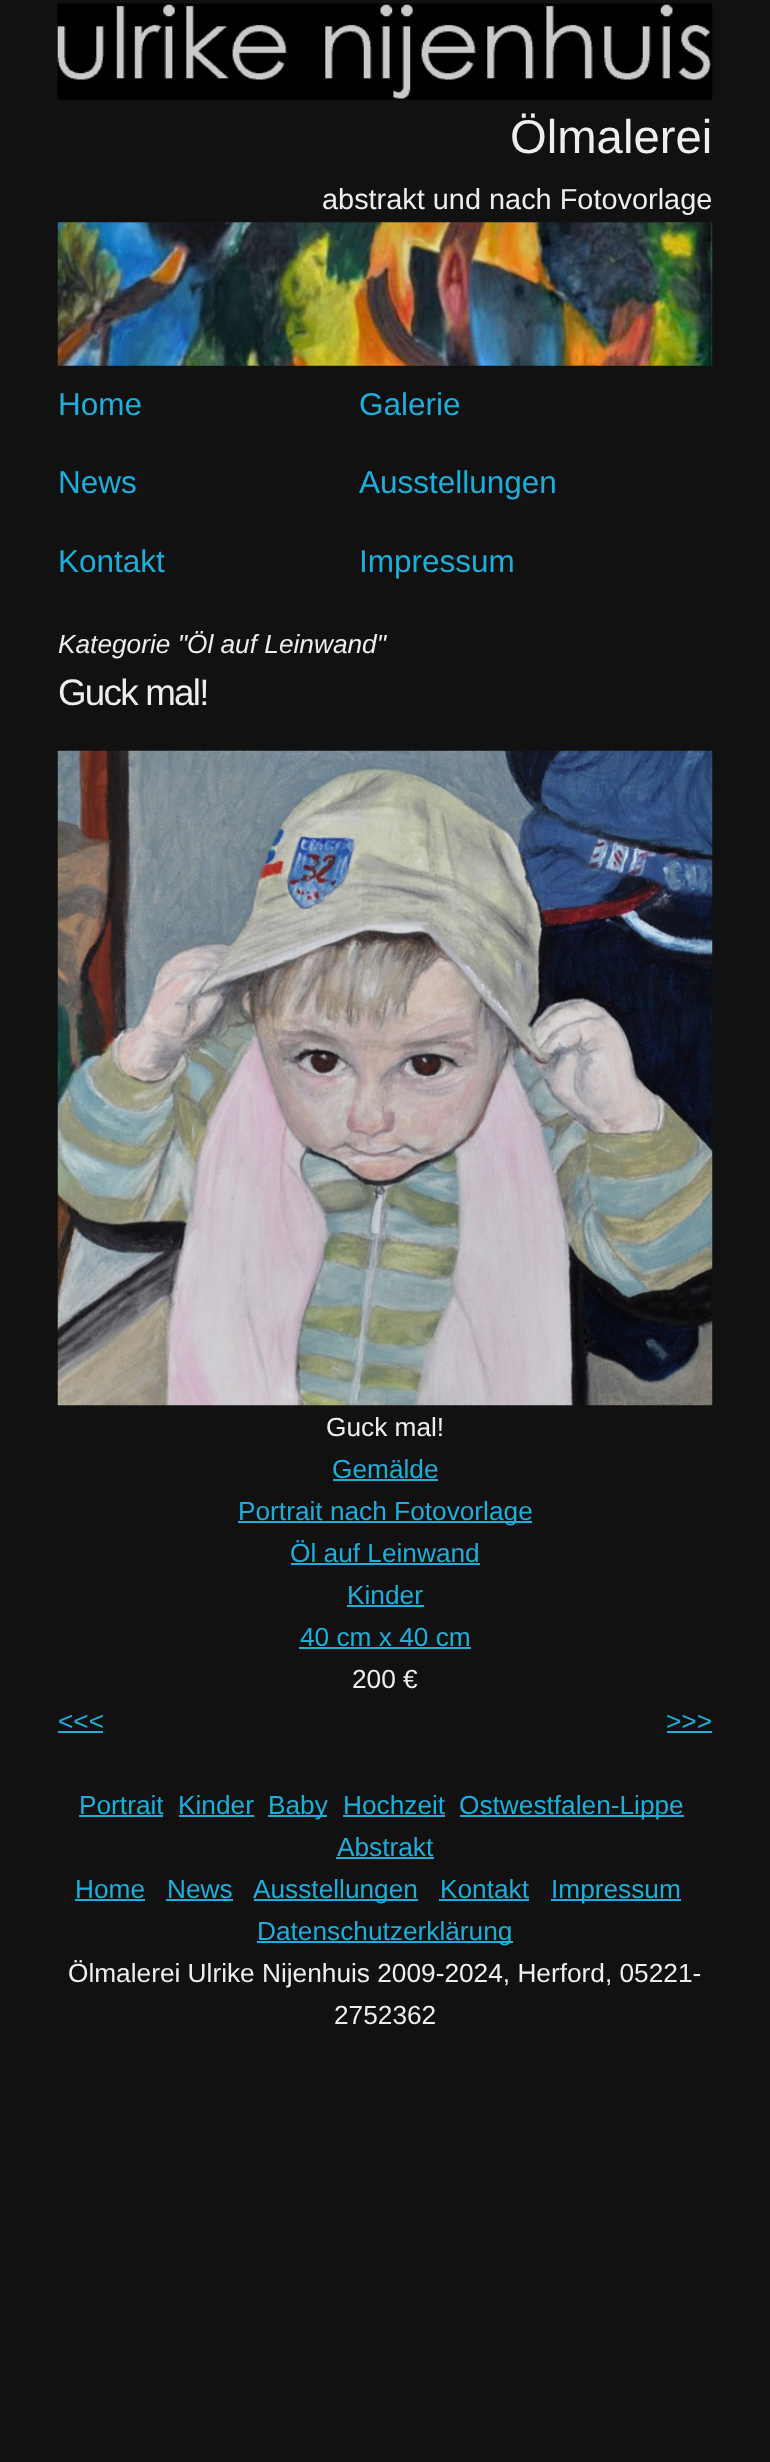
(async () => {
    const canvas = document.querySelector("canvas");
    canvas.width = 770;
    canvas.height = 2462;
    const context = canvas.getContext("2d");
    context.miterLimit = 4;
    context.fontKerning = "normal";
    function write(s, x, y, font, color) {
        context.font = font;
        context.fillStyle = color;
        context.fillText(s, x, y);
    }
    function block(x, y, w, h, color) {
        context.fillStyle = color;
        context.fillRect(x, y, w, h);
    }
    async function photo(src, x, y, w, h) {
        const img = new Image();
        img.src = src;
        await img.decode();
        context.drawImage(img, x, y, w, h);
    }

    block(0, 0, 770, 2462, "rgb(17, 17, 17)");
    await photo("media/1.png", 57, 3, 656, 97);
    write("Ölmalerei", 510, 153, "47.25px Liberation Sans", "rgb(238, 238, 238)");
    write("abstrakt und nach Fotovorlage", 322, 209, "28.9px Liberation Sans", "rgb(238, 238, 238)");
    await photo("media/2.png", 57, 222, 656, 144);
    write("Home", 58, 415, "31.5px Liberation Sans", "rgb(30, 174, 219)");
    write("Galerie", 359, 415, "31.5px Liberation Sans", "rgb(30, 174, 219)");
    write("News", 58, 493, "31.5px Liberation Sans", "rgb(30, 174, 219)");
    write("Ausstellungen", 359, 493, "31.5px Liberation Sans", "rgb(30, 174, 219)");
    write("Kontakt", 58, 572, "31.5px Liberation Sans", "rgb(30, 174, 219)");
    write("Impressum", 359, 572, "31.5px Liberation Sans", "rgb(30, 174, 219)");
    write("Kategorie \"Öl auf Leinwand\"", 58, 653, "italic 26.25px Liberation Sans", "rgb(238, 238, 238)");
    context.letterSpacing = "-1.75px";
    write("Guck mal!", 58, 705, "36.75px Liberation Sans", "rgb(238, 238, 238)");
    await photo("media/3.png", 57, 750, 656, 656);
    context.letterSpacing = "0px";
    write("Guck mal!", 326, 1436, "26.25px Liberation Sans", "rgb(238, 238, 238)");
    write("Gemälde", 332, 1478, "26.25px Liberation Sans", "rgb(30, 174, 219)");
    block(333, 1479, 105, 2, "rgb(30, 174, 219)");
    block(238, 1521, 294, 2, "rgb(30, 174, 219)");
    write("Portrait nach Fotovorlage", 238, 1520, "26.25px Liberation Sans", "rgb(30, 174, 219)");
    write("Öl auf Leinwand", 290, 1562, "26.25px Liberation Sans", "rgb(30, 174, 219)");
    block(291, 1563, 189, 2, "rgb(30, 174, 219)");
    write("Kinder", 347, 1604, "26.25px Liberation Sans", "rgb(30, 174, 219)");
    block(347, 1605, 77, 2, "rgb(30, 174, 219)");
    write("40 cm x 40 cm", 300, 1646, "26.25px Liberation Sans", "rgb(30, 174, 219)");
    block(299, 1647, 172, 2, "rgb(30, 174, 219)");
    write("200 €", 352, 1688, "26.25px Liberation Sans", "rgb(238, 238, 238)");
    write("<<<", 58, 1730, "26.25px Liberation Sans", "rgb(30, 174, 219)");
    block(58, 1731, 45, 2, "rgb(30, 174, 219)");
    write(">>>", 666, 1730, "26.25px Liberation Sans", "rgb(30, 174, 219)");
    block(667, 1731, 45, 2, "rgb(30, 174, 219)");
    write("Portrait", 79, 1814, "26.25px Liberation Sans", "rgb(30, 174, 219)");
    block(79, 1815, 84, 2, "rgb(30, 174, 219)");
    write("Kinder", 178, 1814, "26.25px Liberation Sans", "rgb(30, 174, 219)");
    block(179, 1815, 75, 2, "rgb(30, 174, 219)");
    block(268, 1815, 59, 2, "rgb(30, 174, 219)");
    write("Baby", 268, 1814, "26.25px Liberation Sans", "rgb(30, 174, 219)");
    write("Hochzeit", 343, 1814, "26.25px Liberation Sans", "rgb(30, 174, 219)");
    block(343, 1815, 102, 2, "rgb(30, 174, 219)");
    block(460, 1815, 224, 2, "rgb(30, 174, 219)");
    write("Ostwestfalen-Lippe", 459, 1814, "26.25px Liberation Sans", "rgb(30, 174, 219)");
    write("Abstrakt", 337, 1856, "26.25px Liberation Sans", "rgb(30, 174, 219)");
    block(336, 1857, 98, 2, "rgb(30, 174, 219)");
    write("Home", 75, 1898, "26.25px Liberation Sans", "rgb(30, 174, 219)");
    block(75, 1899, 70, 2, "rgb(30, 174, 219)");
    write("News", 167, 1898, "26.25px Liberation Sans", "rgb(30, 174, 219)");
    block(166, 1899, 67, 2, "rgb(30, 174, 219)");
    block(254, 1899, 164, 2, "rgb(30, 174, 219)");
    write("Ausstellungen", 253, 1898, "26.25px Liberation Sans", "rgb(30, 174, 219)");
    write("Kontakt", 440, 1898, "26.25px Liberation Sans", "rgb(30, 174, 219)");
    block(439, 1899, 90, 2, "rgb(30, 174, 219)");
    block(551, 1899, 130, 2, "rgb(30, 174, 219)");
    write("Impressum", 551, 1898, "26.25px Liberation Sans", "rgb(30, 174, 219)");
    block(257, 1941, 256, 2, "rgb(30, 174, 219)");
    write("Datenschutzerklärung", 257, 1940, "26.25px Liberation Sans", "rgb(30, 174, 219)");
    write("Ölmalerei Ulrike Nijenhuis 2009-2024, Herford, 05221-", 68, 1982, "26.25px Liberation Sans", "rgb(238, 238, 238)");
    write("2752362", 334, 2024, "26.25px Liberation Sans", "rgb(238, 238, 238)");
})();
